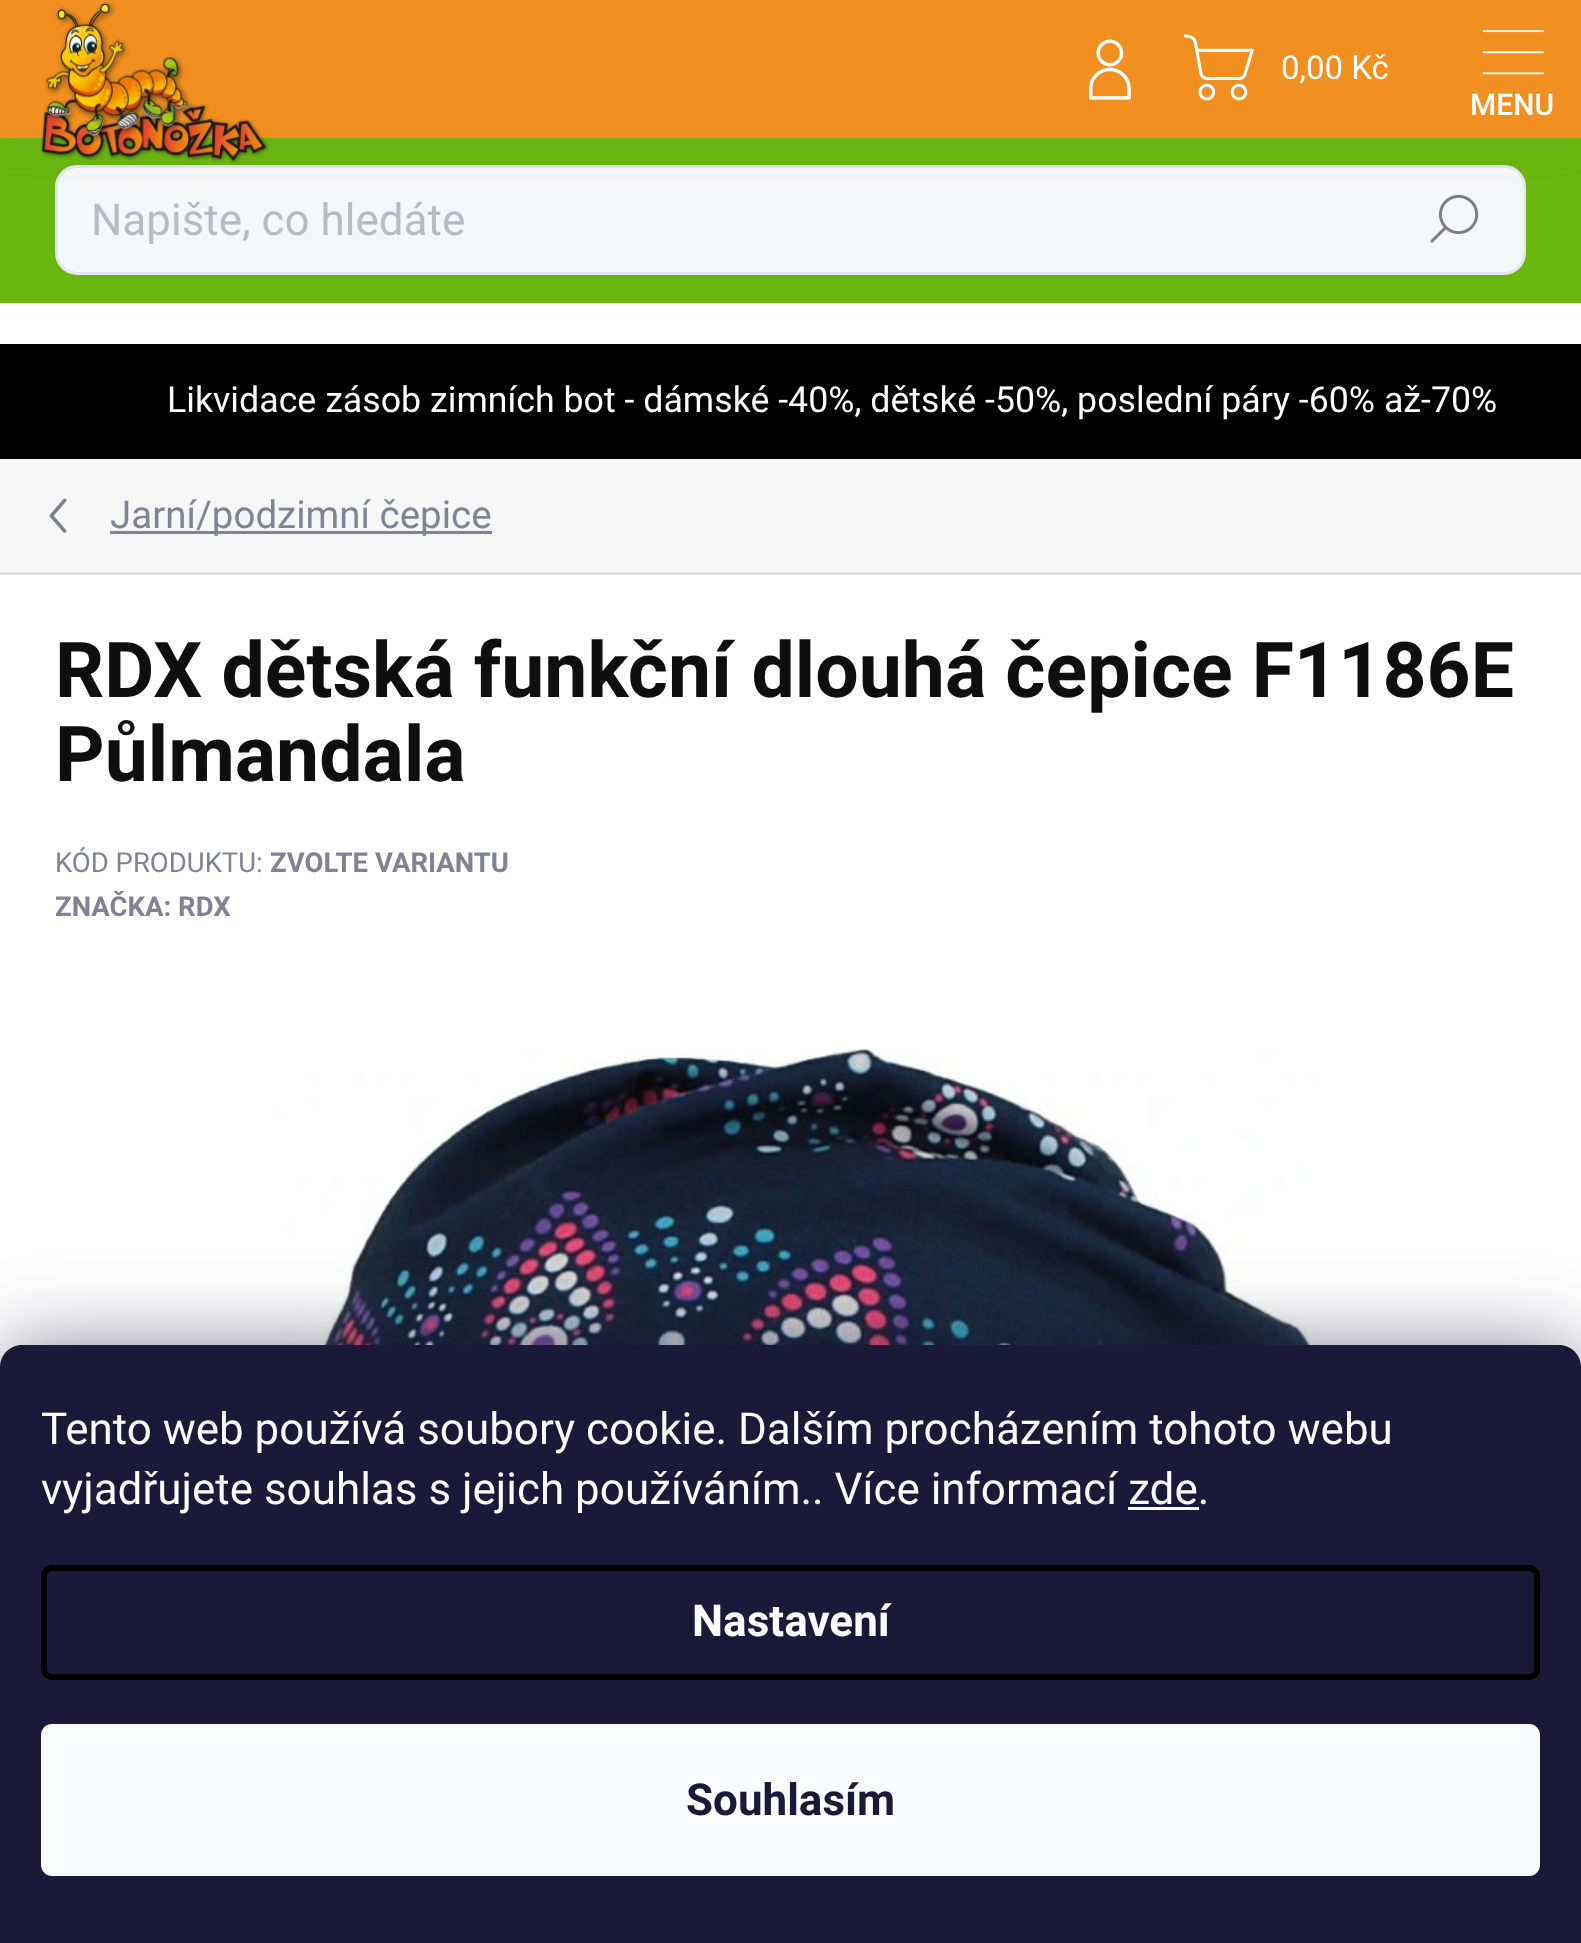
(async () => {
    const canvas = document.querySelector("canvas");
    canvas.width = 1581;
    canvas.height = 1943;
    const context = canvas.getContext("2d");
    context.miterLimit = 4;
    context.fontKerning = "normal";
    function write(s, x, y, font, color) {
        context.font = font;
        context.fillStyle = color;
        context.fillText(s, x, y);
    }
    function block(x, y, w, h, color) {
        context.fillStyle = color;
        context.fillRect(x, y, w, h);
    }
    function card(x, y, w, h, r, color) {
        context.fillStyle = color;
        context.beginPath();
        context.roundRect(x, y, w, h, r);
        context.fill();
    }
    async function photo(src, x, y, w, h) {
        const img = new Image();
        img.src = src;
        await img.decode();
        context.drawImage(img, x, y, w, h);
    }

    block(0, 0, 1581, 1943, "rgb(255, 255, 255)");
    block(0, 138, 1581, 165, "rgb(105, 182, 14)");
    context.fillStyle = "rgb(245, 246, 248)";
    context.beginPath();
    context.roundRect(56.5, 166.5, 1468, 107, 20.5);
    context.fill();
    context.strokeStyle = "rgb(224, 229, 238)";
    context.lineWidth = 3;
    context.stroke();
    card(1386, 168, 138, 104, 22, "rgb(245, 246, 248)");
    context.fillStyle = "rgba(125, 125, 125, 0.1)";
    context.filter = "blur(14px)";
    context.beginPath();
    context.rect(0, 14, 1581, 137);
    context.fill();
    context.filter = "none";
    block(0, 0, 1581, 138, "rgb(241, 144, 32)");
    await photo("media/1.png", 41, 1, 228, 163);
    await photo("media/2.png", 1089, 39, 42, 61);
    await photo("media/3.png", 1183, 34, 71, 67);
    write("0,00 Kč", 1281, 79, "33px Roboto", "rgb(255, 255, 255)");
    await photo("media/4.png", 1482, 30, 63, 45);
    write("MENU", 1470, 115, "500 30px Roboto", "rgb(255, 255, 255)");
    write("Napište, co hledáte", 91, 235, "44px Roboto", "rgb(185, 186, 196)");
    await photo("media/5.png", 1430, 194, 49, 49);
    block(0, 344, 1581, 115, "rgb(0, 0, 0)");
    write("Likvidace zásob zimních bot - dámské -40%, dětské -50%, poslední páry -60% až-70%", 167, 412, "35.75px Roboto", "rgb(255, 255, 255)");
    block(0, 459, 1581, 113, "rgb(246, 246, 246)");
    block(0, 572, 1581, 3, "rgb(223, 223, 226)");
    await photo("media/6.png", 49, 498, 18, 35);
    block(110, 531, 382, 3, "rgb(129, 131, 148)");
    write("Jarní/podzimní čepice", 110, 528, "38.5px Roboto", "rgb(129, 131, 148)");
    write("RDX dětská funkční dlouhá čepice F1186E", 55, 697, "bold 77px Roboto", "rgb(15, 15, 15)");
    write("Půlmandala", 55, 781, "bold 77px Roboto", "rgb(15, 15, 15)");
    write("KÓD PRODUKTU:", 55, 872, "27.5px Roboto", "rgb(129, 131, 148)");
    write("ZVOLTE VARIANTU", 270, 872, "bold 27.5px Roboto", "rgb(129, 131, 148)");
    write("ZNAČKA: RDX", 55, 916, "bold 27.5px Roboto", "rgb(129, 131, 148)");
    await photo("media/7.png", 275, 1048, 1044, 297);
    context.fillStyle = "rgba(27, 25, 57, 0.5)";
    context.filter = "blur(41px)";
    context.beginPath();
    context.roundRect(0, 1345, 1581, 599, 22);
    context.fill();
    context.filter = "none";
    context.fillStyle = "rgb(26, 25, 55)";
    context.beginPath();
    context.moveTo(22, 1345);
    context.lineTo(1559, 1345);
    context.bezierCurveTo(1571, 1345, 1581, 1355, 1581, 1367);
    context.lineTo(1581, 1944);
    context.lineTo(0, 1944);
    context.lineTo(0, 1367);
    context.bezierCurveTo(0, 1355, 10, 1345, 22, 1345);
    context.closePath();
    context.fill();
    write("Tento web používá soubory cookie. Dalším procházením tohoto webu", 41, 1444, "44px Roboto", "rgb(248, 250, 251)");
    write("vyjadřujete souhlas s jejich používáním.. Více informací zde.", 41, 1504, "44px Roboto", "rgb(248, 250, 251)");
    block(1128, 1507, 71, 3, "rgb(248, 250, 251)");
    context.beginPath();
    context.roundRect(44, 1568, 1493, 109, 8);
    context.strokeStyle = "rgb(0, 0, 0)";
    context.lineWidth = 6;
    context.stroke();
    write("Nastavení", 692, 1636, "bold 44px Roboto", "rgb(248, 250, 251)");
    card(41, 1724, 1499, 152, 11, "rgb(248, 250, 251)");
    write("Souhlasím", 686, 1815, "bold 44px Roboto", "rgb(26, 25, 55)");
})();
